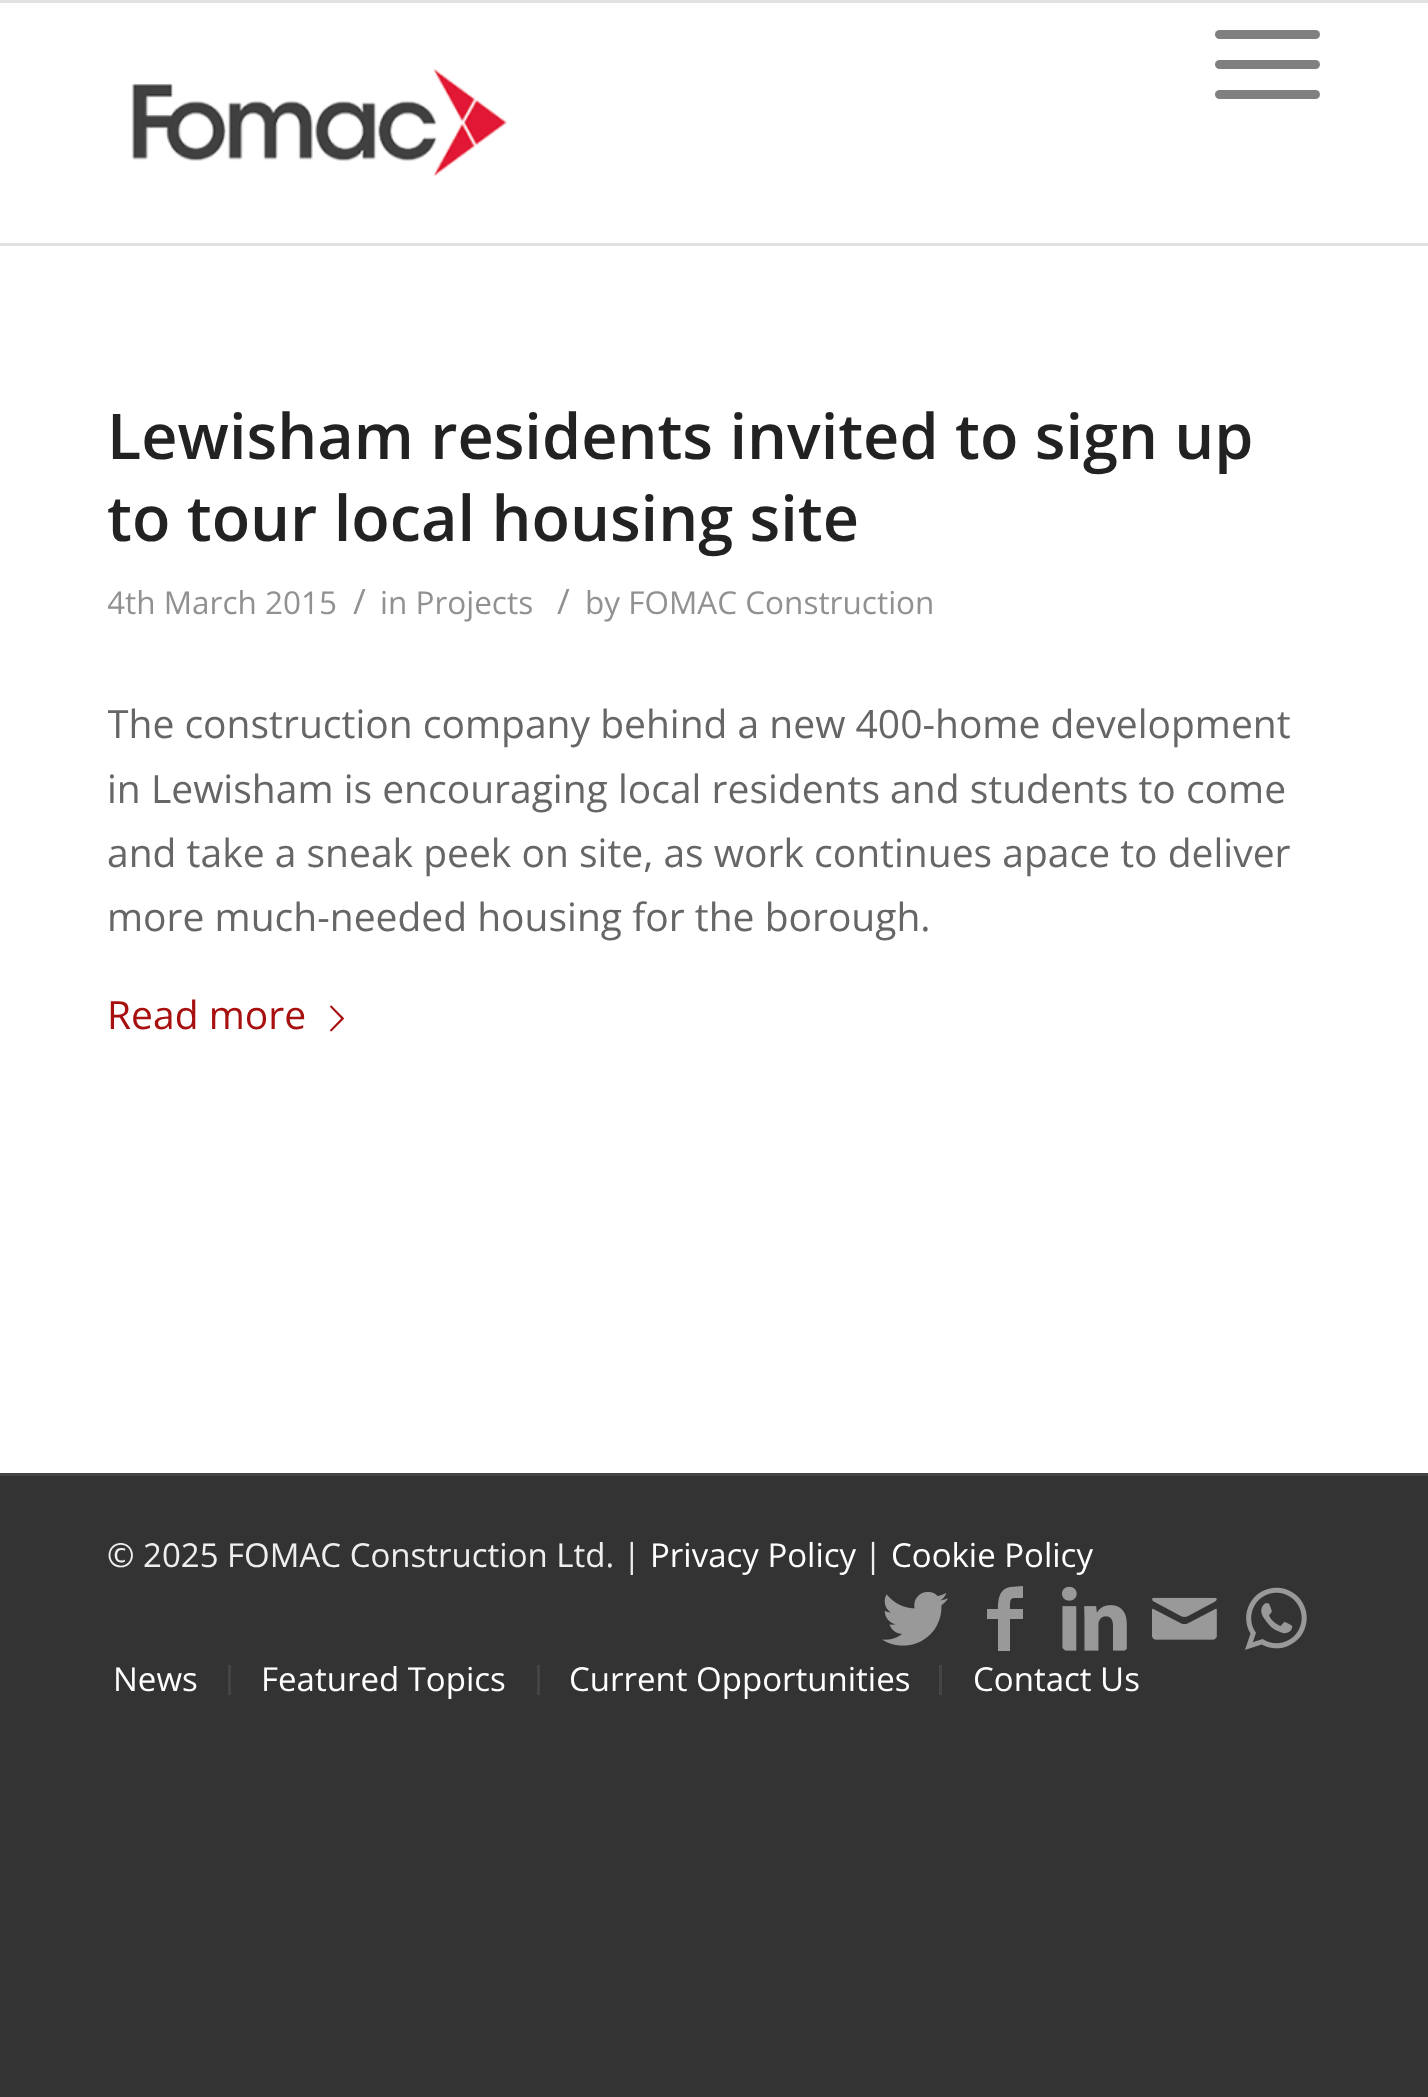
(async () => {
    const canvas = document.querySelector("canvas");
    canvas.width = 1428;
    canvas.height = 2097;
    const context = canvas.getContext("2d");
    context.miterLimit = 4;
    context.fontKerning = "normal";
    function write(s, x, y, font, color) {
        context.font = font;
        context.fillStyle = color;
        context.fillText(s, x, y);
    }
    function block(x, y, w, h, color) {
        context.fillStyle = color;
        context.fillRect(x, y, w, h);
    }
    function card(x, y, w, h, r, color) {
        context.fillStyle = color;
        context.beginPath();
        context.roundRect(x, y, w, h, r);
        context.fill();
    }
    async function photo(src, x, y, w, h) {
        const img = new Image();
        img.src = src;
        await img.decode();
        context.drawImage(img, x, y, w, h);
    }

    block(0, 0, 1428, 2097, "rgb(51, 51, 51)");
    block(0, 0, 1428, 3, "rgb(225, 225, 225)");
    block(0, 243, 1428, 3, "rgb(225, 225, 225)");
    block(0, 3, 1428, 240, "rgb(255, 255, 255)");
    await photo("media/1.png", 131, 68, 377, 109);
    card(1215, 60, 105, 9, 4.5, "rgb(128, 128, 128)");
    card(1215, 30, 105, 9, 4.5, "rgb(128, 128, 128)");
    card(1215, 90, 105, 9, 4.5, "rgb(128, 128, 128)");
    block(0, 246, 1428, 1227, "rgb(255, 255, 255)");
    write("Lewisham residents invited to sign up", 107, 459, "600 63px Open Sans", "rgb(34, 34, 34)");
    write("to tour local housing site", 107, 541, "600 63px Open Sans", "rgb(34, 34, 34)");
    context.save();
    context.beginPath();
    context.rect(108, 396, 1212, 867);
    context.clip();
    write("4th March 2015", 107, 614, "31.5px Open Sans", "rgb(145, 145, 145)");
    context.restore();
    write("/", 353, 614, "35px Open Sans", "rgb(145, 145, 145)");
    write("in Projects", 380, 614, "31.5px Open Sans", "rgb(145, 145, 145)");
    write("/", 557, 614, "35px Open Sans", "rgb(145, 145, 145)");
    write("by FOMAC Construction", 585, 614, "31.5px Open Sans", "rgb(145, 145, 145)");
    context.save();
    context.beginPath();
    context.rect(108, 396, 1212, 867);
    context.clip();
    write("The construction company behind a new 400-home development", 107, 738, "39px Open Sans", "rgb(102, 102, 102)");
    context.restore();
    write("in Lewisham is encouraging local residents and students to come", 107, 803, "39px Open Sans", "rgb(102, 102, 102)");
    write("and take a sneak peek on site, as work continues apace to deliver", 107, 867, "39px Open Sans", "rgb(102, 102, 102)");
    write("more much-needed housing for the borough.", 107, 931, "39px Open Sans", "rgb(102, 102, 102)");
    write("Read more", 107, 1029, "39px Open Sans", "rgb(168, 16, 16)");
    await photo("media/2.png", 330, 1005, 14, 27);
    block(0, 1473, 1428, 3, "rgb(68, 68, 68)");
    write("© 2025 FOMAC Construction Ltd. |", 107, 1567, "33px Open Sans", "rgb(238, 238, 238)");
    write("Privacy Policy", 650, 1567, "33px Open Sans", "rgb(255, 255, 255)");
    write("|", 864, 1567, "33px Open Sans", "rgb(238, 238, 238)");
    write("Cookie Policy", 891, 1567, "33px Open Sans", "rgb(255, 255, 255)");
    await photo("media/3.png", 882, 1591, 66, 55);
    context.fillStyle = "rgb(153, 153, 153)";
    context.beginPath();
    context.moveTo(1023, 1598);
    context.bezierCurveTo(1010, 1598, 1010, 1596, 1010, 1609);
    context.lineTo(1023, 1609);
    context.lineTo(1023, 1619);
    context.lineTo(1010, 1619);
    context.lineTo(1010, 1651);
    context.lineTo(998, 1651);
    context.lineTo(998, 1619);
    context.lineTo(987, 1619);
    context.lineTo(987, 1609);
    context.lineTo(998, 1609);
    context.bezierCurveTo(998, 1600, 999, 1589, 1010, 1587);
    context.lineTo(1023, 1586);
    context.closePath();
    context.fill();
    await photo("media/4.png", 1062, 1586, 65, 65);
    await photo("media/5.png", 1152, 1597, 65, 43);
    await photo("media/6.png", 1245, 1587, 62, 63);
    write("News", 113, 1691, "33px Open Sans", "rgb(255, 255, 255)");
    block(228, 1665, 3, 30, "rgb(68, 68, 68)");
    write("Featured Topics", 261, 1691, "33px Open Sans", "rgb(255, 255, 255)");
    block(537, 1665, 3, 30, "rgb(68, 68, 68)");
    write("Current Opportunities", 569, 1691, "33px Open Sans", "rgb(255, 255, 255)");
    block(939, 1665, 3, 30, "rgb(68, 68, 68)");
    write("Contact Us", 973, 1691, "33px Open Sans", "rgb(255, 255, 255)");
})();
